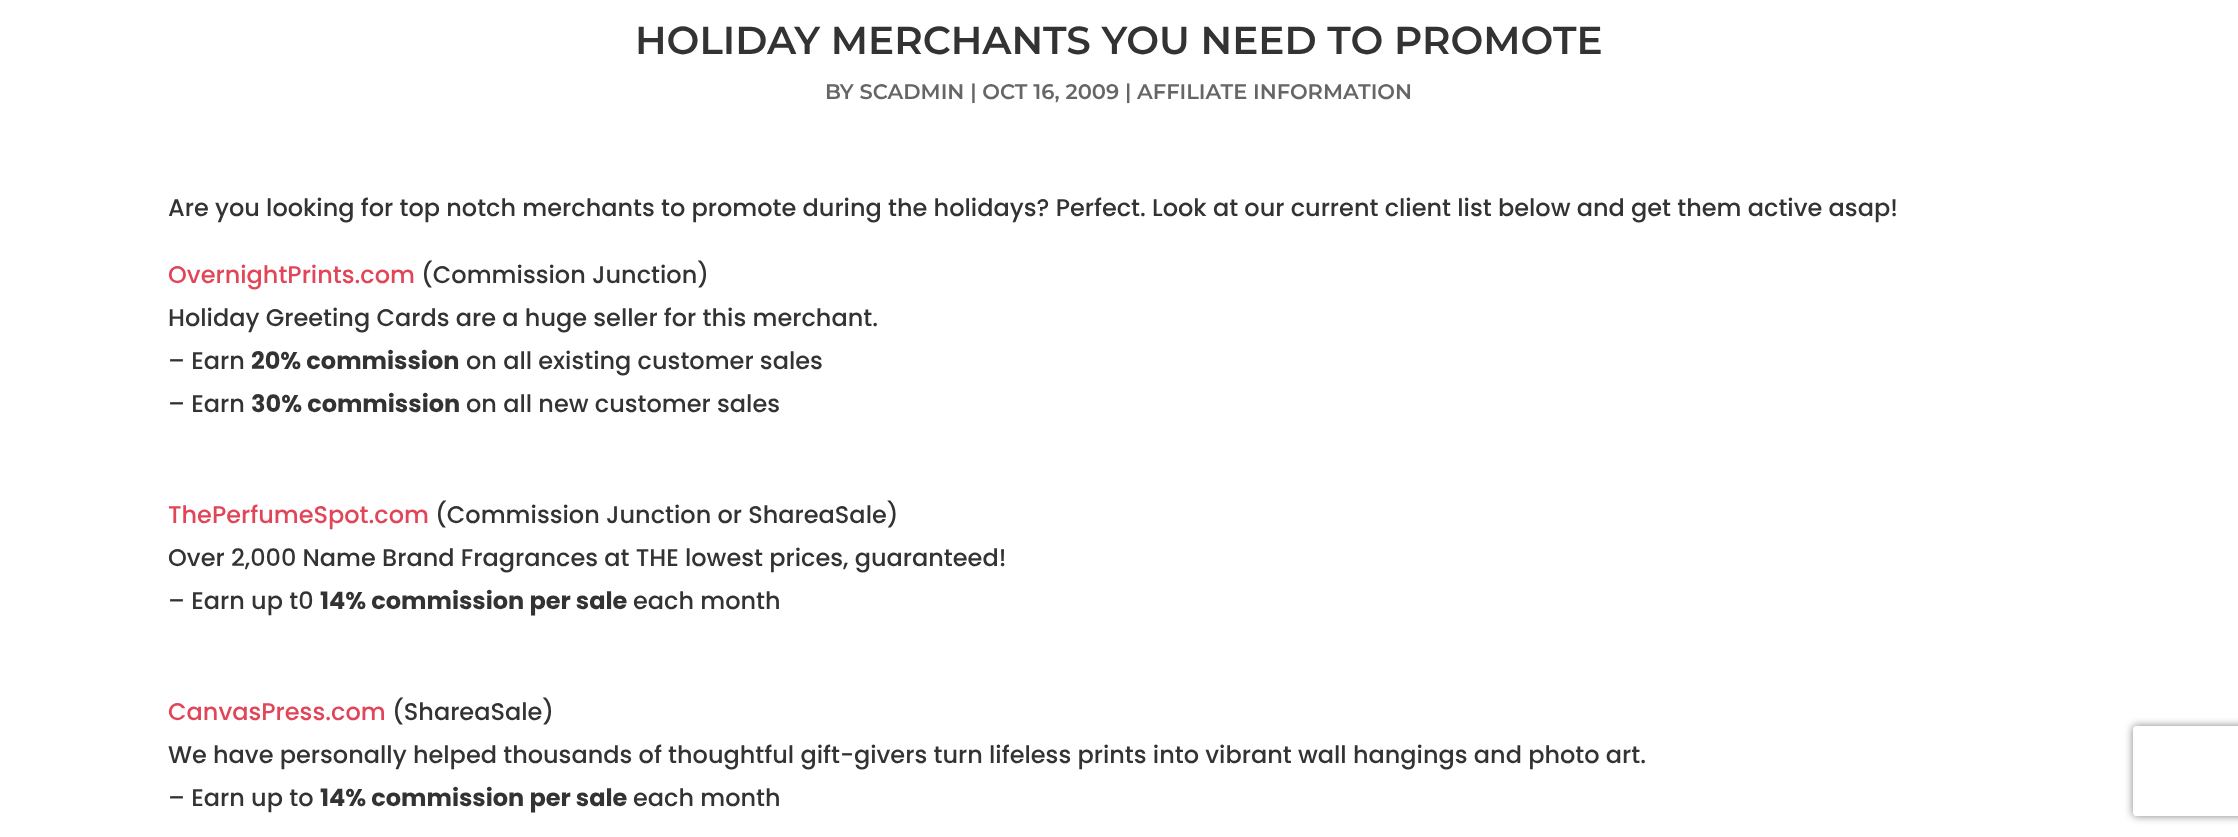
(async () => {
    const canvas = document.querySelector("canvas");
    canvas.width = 2238;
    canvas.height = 837;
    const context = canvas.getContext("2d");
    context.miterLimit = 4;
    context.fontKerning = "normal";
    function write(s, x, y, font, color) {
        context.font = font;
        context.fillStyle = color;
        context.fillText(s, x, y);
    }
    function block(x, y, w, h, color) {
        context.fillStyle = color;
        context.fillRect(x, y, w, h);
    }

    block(0, 0, 2238, 837, "rgb(255, 255, 255)");
    write("HOLIDAY MERCHANTS YOU NEED TO PROMOTE", 635, 54, "600 39px Montserrat", "rgb(51, 51, 51)");
    write("BY SCADMIN | OCT 16, 2009 | AFFILIATE INFORMATION", 825, 99, "600 21px Montserrat", "rgb(102, 102, 102)");
    write("Are you looking for top notch merchants to promote during the holidays? Perfect. Look at our current client list below and get them active asap!", 168, 216, "500 24px Poppins", "rgb(51, 51, 51)");
    write("OvernightPrints.com", 168, 283, "500 24px Poppins", "rgb(225, 70, 88)");
    write("(Commission Junction)", 421, 283, "500 24px Poppins", "rgb(51, 51, 51)");
    write("Holiday Greeting Cards are a huge seller for this merchant.", 168, 326, "500 24px Poppins", "rgb(51, 51, 51)");
    write("– Earn", 168, 369, "500 24px Poppins", "rgb(51, 51, 51)");
    write("20% commission", 251, 369, "bold 24px Poppins", "rgb(51, 51, 51)");
    write("on all existing customer sales", 466, 369, "500 24px Poppins", "rgb(51, 51, 51)");
    write("– Earn", 168, 412, "500 24px Poppins", "rgb(51, 51, 51)");
    write("30% commission", 251, 412, "bold 24px Poppins", "rgb(51, 51, 51)");
    write("on all new customer sales", 466, 412, "500 24px Poppins", "rgb(51, 51, 51)");
    write("ThePerfumeSpot.com", 168, 523, "500 24px Poppins", "rgb(225, 70, 88)");
    write("(Commission Junction or ShareaSale)", 435, 523, "500 24px Poppins", "rgb(51, 51, 51)");
    write("Over 2,000 Name Brand Fragrances at THE lowest prices, guaranteed!", 168, 566, "500 24px Poppins", "rgb(51, 51, 51)");
    write("– Earn up t0", 168, 609, "500 24px Poppins", "rgb(51, 51, 51)");
    write("14% commission per sale", 320, 609, "bold 24px Poppins", "rgb(51, 51, 51)");
    write("each month", 633, 609, "500 24px Poppins", "rgb(51, 51, 51)");
    write("CanvasPress.com", 168, 720, "500 24px Poppins", "rgb(225, 70, 88)");
    write("(ShareaSale)", 392, 720, "500 24px Poppins", "rgb(51, 51, 51)");
    write("We have personally helped thousands of thoughtful gift-givers turn lifeless prints into vibrant wall hangings and photo art.", 168, 763, "500 24px Poppins", "rgb(51, 51, 51)");
    write("– Earn up to", 168, 806, "500 24px Poppins", "rgb(51, 51, 51)");
    write("14% commission per sale", 320, 806, "bold 24px Poppins", "rgb(51, 51, 51)");
    write("each month", 633, 806, "500 24px Poppins", "rgb(51, 51, 51)");
    context.save();
    context.beginPath();
    context.moveTo(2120, 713);
    context.lineTo(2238, 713);
    context.lineTo(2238, 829);
    context.lineTo(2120, 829);
    context.closePath();
    context.moveTo(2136, 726);
    context.lineTo(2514, 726);
    context.bezierCurveTo(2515.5, 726, 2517, 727.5, 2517, 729);
    context.lineTo(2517, 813);
    context.bezierCurveTo(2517, 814.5, 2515.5, 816, 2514, 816);
    context.lineTo(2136, 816);
    context.bezierCurveTo(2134.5, 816, 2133, 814.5, 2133, 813);
    context.lineTo(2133, 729);
    context.bezierCurveTo(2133, 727.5, 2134.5, 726, 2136, 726);
    context.closePath();
    context.clip("evenodd");
    context.fillStyle = "rgb(128, 128, 128)";
    context.filter = "blur(4px)";
    context.beginPath();
    context.roundRect(2133, 726, 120, 90, 3);
    context.fill();
    context.filter = "none";
    context.restore();
})();
